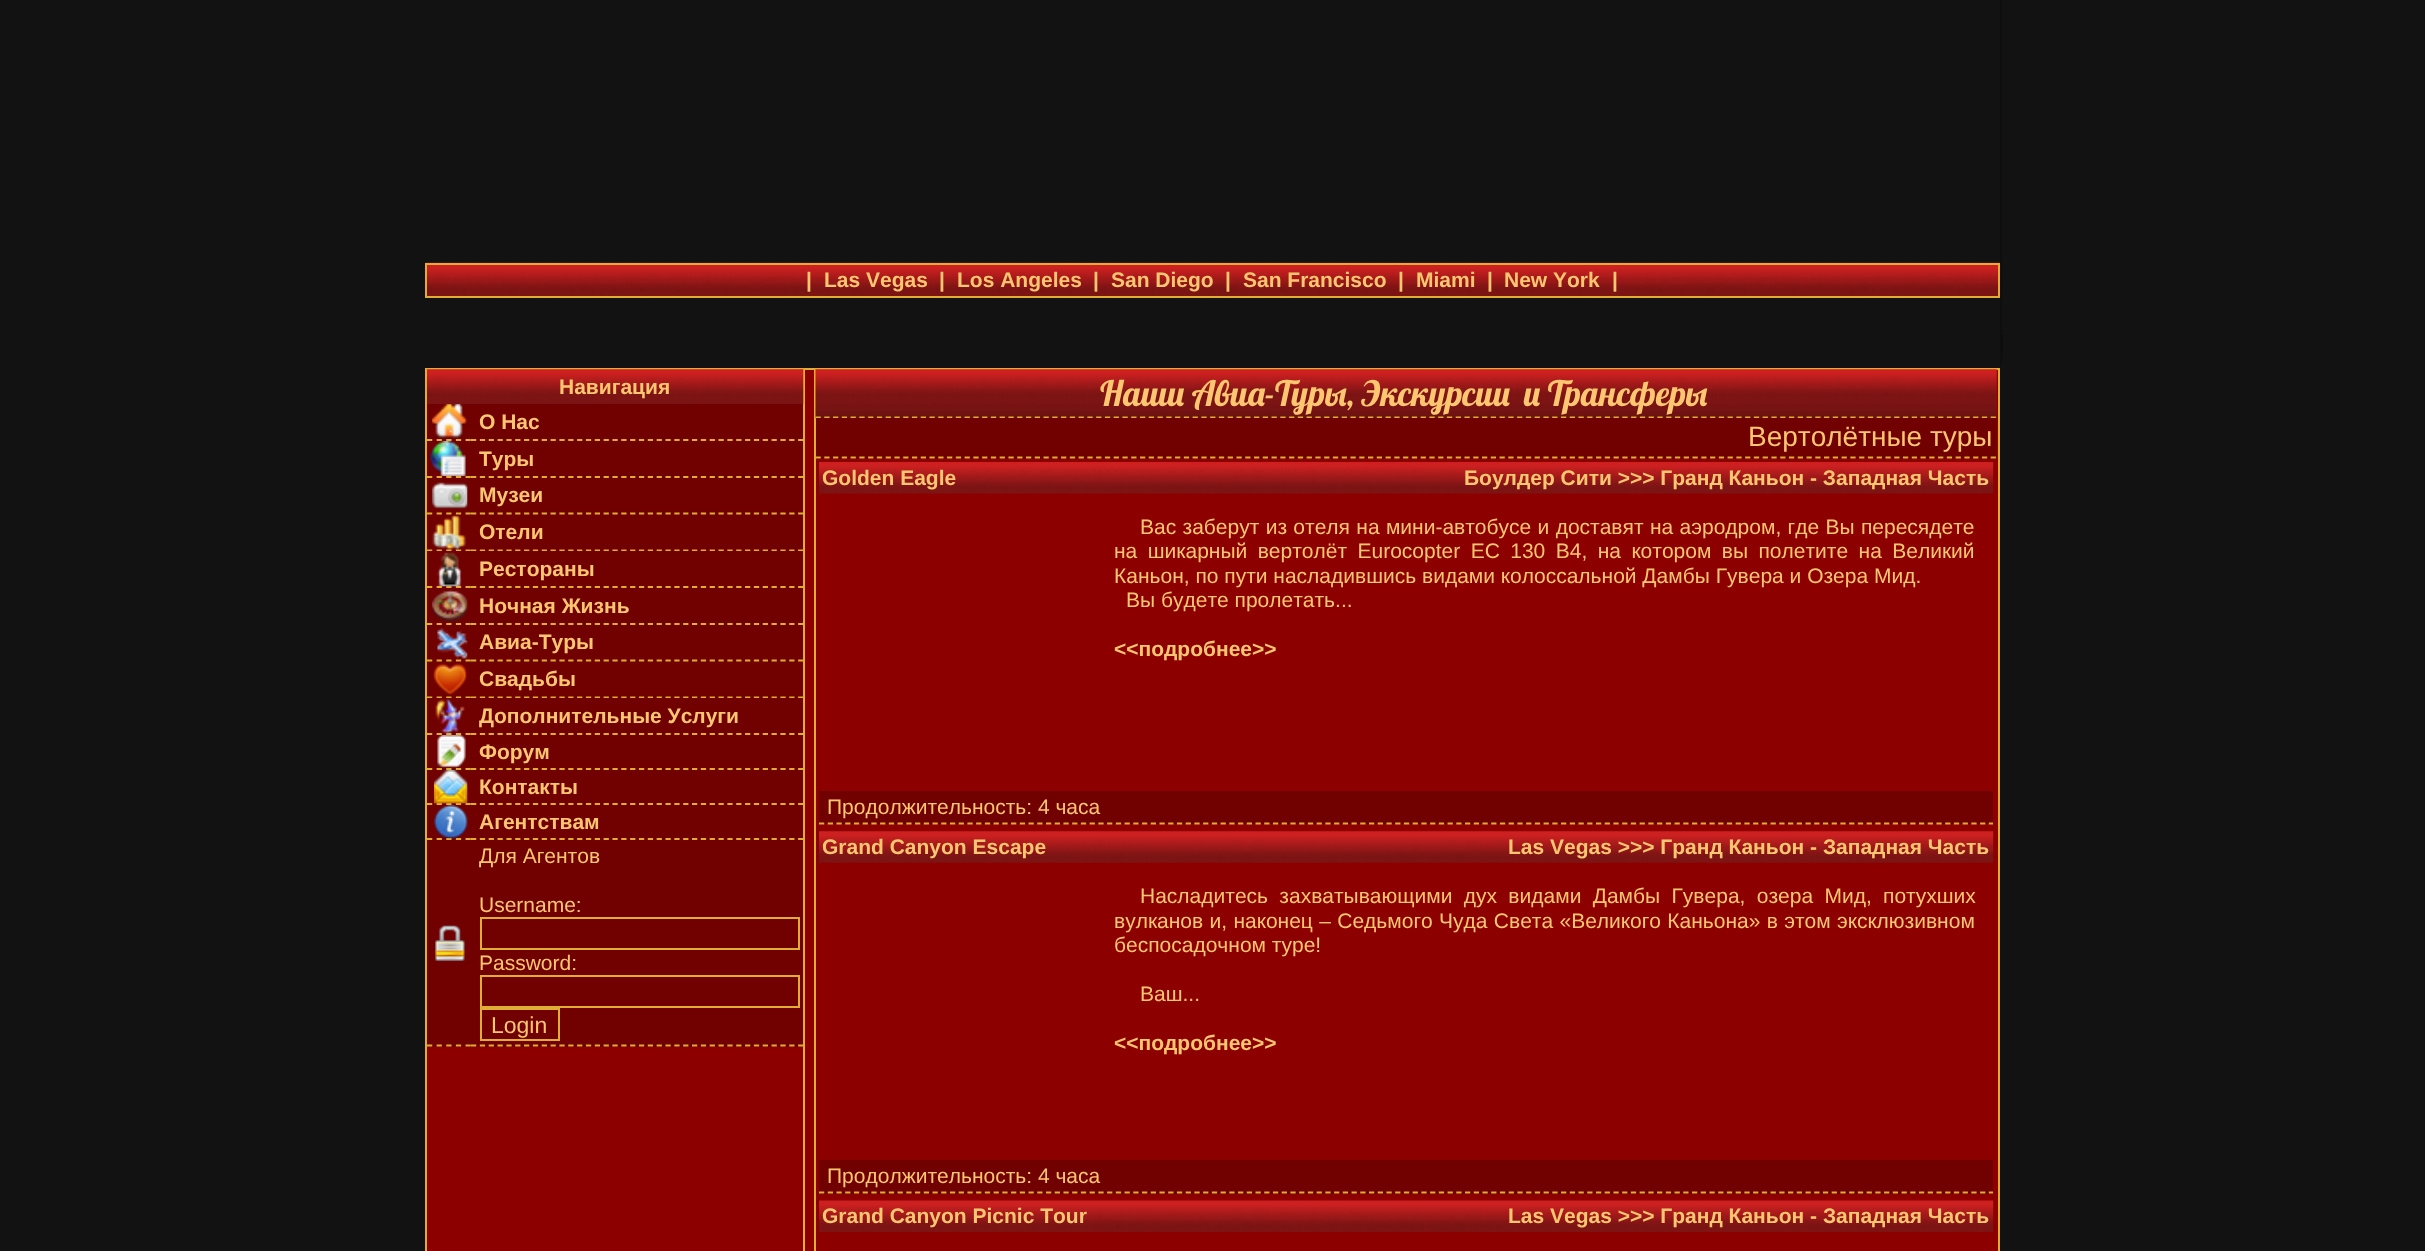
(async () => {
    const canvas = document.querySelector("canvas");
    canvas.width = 2425;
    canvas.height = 1251;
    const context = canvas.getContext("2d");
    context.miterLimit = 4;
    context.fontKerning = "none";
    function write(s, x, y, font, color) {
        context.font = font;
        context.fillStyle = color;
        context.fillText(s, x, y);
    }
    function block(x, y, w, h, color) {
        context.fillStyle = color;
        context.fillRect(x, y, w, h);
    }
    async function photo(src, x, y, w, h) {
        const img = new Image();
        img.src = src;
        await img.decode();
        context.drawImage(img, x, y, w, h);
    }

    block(0, 0, 2425, 1251, "rgb(18, 18, 18)");
    await photo("media/1.png", 425, 262, 1576, 36);
    context.strokeStyle = "rgb(224, 174, 53)";
    context.lineWidth = 2;
    context.strokeRect(426, 264, 1573, 33);
    write("|", 806, 287, "bold 21px Liberation Sans", "rgb(255, 198, 113)");
    write("Las Vegas", 824, 287, "bold 21px Liberation Sans", "rgb(255, 198, 113)");
    write("|", 939, 287, "bold 21px Liberation Sans", "rgb(255, 198, 113)");
    write("Los Angeles", 957, 287, "bold 21px Liberation Sans", "rgb(255, 198, 113)");
    write("|", 1093, 287, "bold 21px Liberation Sans", "rgb(255, 198, 113)");
    write("San Diego", 1111, 287, "bold 21px Liberation Sans", "rgb(255, 198, 113)");
    write("|", 1225, 287, "bold 21px Liberation Sans", "rgb(255, 198, 113)");
    write("San Francisco", 1243, 287, "bold 21px Liberation Sans", "rgb(255, 198, 113)");
    write("|", 1398, 287, "bold 21px Liberation Sans", "rgb(255, 198, 113)");
    write("Miami", 1416, 287, "bold 21px Liberation Sans", "rgb(255, 198, 113)");
    write("|", 1487, 287, "bold 21px Liberation Sans", "rgb(255, 198, 113)");
    write("New York", 1504, 287, "bold 21px Liberation Sans", "rgb(255, 198, 113)");
    write("|", 1612, 287, "bold 21px Liberation Sans", "rgb(255, 198, 113)");
    await photo("media/2.png", 2000, 0, 2, 367);
    await photo("media/3.png", 2001, 334, 2, 33);
    context.fillStyle = "rgb(140, 0, 0)";
    context.beginPath();
    context.rect(426, 369, 1573, 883);
    context.fill();
    context.stroke();
    block(803, 369, 2, 882, "rgb(224, 174, 53)");
    await photo("media/4.png", 427, 369, 377, 36);
    write("Навигация", 559, 394, "bold 21px Liberation Sans", "rgb(255, 198, 113)");
    block(427, 404, 376, 37, "rgb(113, 0, 0)");
    context.beginPath();
    context.moveTo(427, 440);
    context.lineTo(471, 440);
    context.lineWidth = 1.8;
    context.setLineDash([5.25, 4.38]);
    context.stroke();
    await photo("media/5.png", 432, 404, 36, 35);
    context.beginPath();
    context.moveTo(471, 440);
    context.lineTo(803, 440);
    context.setLineDash([5.25, 3.59]);
    context.stroke();
    write("О Нас", 479, 429, "bold 21px Liberation Sans", "rgb(255, 198, 113)");
    block(427, 441, 376, 37, "rgb(113, 0, 0)");
    context.beginPath();
    context.moveTo(427, 477);
    context.lineTo(471, 477);
    context.setLineDash([5.25, 4.38]);
    context.stroke();
    await photo("media/6.png", 430, 441, 36, 35);
    context.beginPath();
    context.moveTo(471, 477);
    context.lineTo(803, 477);
    context.setLineDash([5.25, 3.59]);
    context.stroke();
    write("Туры", 479, 466, "bold 21px Liberation Sans", "rgb(255, 198, 113)");
    block(427, 478, 376, 37, "rgb(113, 0, 0)");
    context.beginPath();
    context.moveTo(427, 513.5);
    context.lineTo(471, 513.5);
    context.setLineDash([5.25, 4.38]);
    context.stroke();
    await photo("media/7.png", 432, 482, 36, 28);
    context.beginPath();
    context.moveTo(471, 513.5);
    context.lineTo(803, 513.5);
    context.setLineDash([5.25, 3.59]);
    context.stroke();
    write("Музеи", 479, 502, "bold 21px Liberation Sans", "rgb(255, 198, 113)");
    block(427, 515, 376, 36, "rgb(113, 0, 0)");
    context.beginPath();
    context.moveTo(427, 550.5);
    context.lineTo(471, 550.5);
    context.setLineDash([5.25, 4.38]);
    context.stroke();
    await photo("media/8.png", 432, 514, 34, 36);
    context.beginPath();
    context.moveTo(471, 550.5);
    context.lineTo(803, 550.5);
    context.setLineDash([5.25, 3.59]);
    context.stroke();
    write("Отели", 479, 539, "bold 21px Liberation Sans", "rgb(255, 198, 113)");
    block(427, 551, 376, 37, "rgb(113, 0, 0)");
    context.beginPath();
    context.moveTo(427, 587);
    context.lineTo(471, 587);
    context.setLineDash([5.25, 4.38]);
    context.stroke();
    await photo("media/9.png", 437, 552, 25, 35);
    context.beginPath();
    context.moveTo(471, 587);
    context.lineTo(803, 587);
    context.setLineDash([5.25, 3.59]);
    context.stroke();
    write("Рестораны", 479, 576, "bold 21px Liberation Sans", "rgb(255, 198, 113)");
    block(427, 588, 376, 37, "rgb(113, 0, 0)");
    context.beginPath();
    context.moveTo(427, 624);
    context.lineTo(471, 624);
    context.setLineDash([5.25, 4.38]);
    context.stroke();
    await photo("media/10.png", 432, 589, 36, 33);
    context.beginPath();
    context.moveTo(471, 624);
    context.lineTo(803, 624);
    context.setLineDash([5.25, 3.59]);
    context.stroke();
    write("Ночная Жизнь", 479, 613, "bold 21px Liberation Sans", "rgb(255, 198, 113)");
    block(427, 625, 376, 37, "rgb(113, 0, 0)");
    context.beginPath();
    context.moveTo(427, 660.5);
    context.lineTo(471, 660.5);
    context.setLineDash([5.25, 4.38]);
    context.stroke();
    await photo("media/11.png", 437, 628, 31, 31);
    context.beginPath();
    context.moveTo(471, 660.5);
    context.lineTo(803, 660.5);
    context.setLineDash([5.25, 3.59]);
    context.stroke();
    write("Авиа-Туры", 479, 649, "bold 21px Liberation Sans", "rgb(255, 198, 113)");
    block(427, 662, 376, 36, "rgb(113, 0, 0)");
    context.beginPath();
    context.moveTo(427, 697.5);
    context.lineTo(471, 697.5);
    context.setLineDash([5.25, 4.38]);
    context.stroke();
    await photo("media/12.png", 433, 663, 35, 32);
    context.beginPath();
    context.moveTo(471, 697.5);
    context.lineTo(803, 697.5);
    context.setLineDash([5.25, 3.59]);
    context.stroke();
    write("Свадьбы", 479, 686, "bold 21px Liberation Sans", "rgb(255, 198, 113)");
    block(427, 698, 376, 37, "rgb(113, 0, 0)");
    context.beginPath();
    context.moveTo(427, 734);
    context.lineTo(471, 734);
    context.setLineDash([5.25, 4.38]);
    context.stroke();
    await photo("media/13.png", 435, 698, 30, 36);
    context.beginPath();
    context.moveTo(471, 734);
    context.lineTo(803, 734);
    context.setLineDash([5.25, 3.59]);
    context.stroke();
    write("Дополнительные Услуги", 479, 723, "bold 21px Liberation Sans", "rgb(255, 198, 113)");
    block(427, 735, 376, 35, "rgb(113, 0, 0)");
    context.beginPath();
    context.moveTo(427, 769);
    context.lineTo(471, 769);
    context.setLineDash([5.25, 4.38]);
    context.stroke();
    await photo("media/14.png", 437, 735, 29, 34);
    context.beginPath();
    context.moveTo(471, 769);
    context.lineTo(803, 769);
    context.setLineDash([5.25, 3.59]);
    context.stroke();
    write("Форум", 479, 759, "bold 21px Liberation Sans", "rgb(255, 198, 113)");
    block(427, 770, 376, 35, "rgb(113, 0, 0)");
    context.beginPath();
    context.moveTo(427, 804);
    context.lineTo(471, 804);
    context.setLineDash([5.25, 4.38]);
    context.stroke();
    await photo("media/15.png", 434, 770, 34, 34);
    context.beginPath();
    context.moveTo(471, 804);
    context.lineTo(803, 804);
    context.setLineDash([5.25, 3.59]);
    context.stroke();
    write("Контакты", 479, 794, "bold 21px Liberation Sans", "rgb(255, 198, 113)");
    block(427, 805, 376, 35, "rgb(113, 0, 0)");
    context.beginPath();
    context.moveTo(427, 839);
    context.lineTo(471, 839);
    context.setLineDash([5.25, 4.38]);
    context.stroke();
    await photo("media/16.png", 434, 805, 34, 34);
    context.beginPath();
    context.moveTo(471, 839);
    context.lineTo(803, 839);
    context.setLineDash([5.25, 3.59]);
    context.stroke();
    write("Агентствам", 479, 829, "bold 21px Liberation Sans", "rgb(255, 198, 113)");
    block(427, 840, 376, 207, "rgb(113, 0, 0)");
    context.beginPath();
    context.moveTo(427, 1045.5);
    context.lineTo(471, 1045.5);
    context.setLineDash([5.25, 4.38]);
    context.stroke();
    await photo("media/17.png", 435, 925, 30, 36);
    context.beginPath();
    context.moveTo(471, 1045.5);
    context.lineTo(803, 1045.5);
    context.setLineDash([5.25, 3.59]);
    context.stroke();
    write("Для Агентов", 479, 863, "21px Liberation Sans", "rgb(255, 198, 113)");
    write("Username:", 479, 912, "21px Liberation Sans", "rgb(255, 198, 113)");
    context.lineWidth = 2;
    context.setLineDash([]);
    context.strokeRect(481, 918, 318, 31);
    write("Password:", 479, 970, "21px Liberation Sans", "rgb(255, 198, 113)");
    context.strokeRect(481, 976, 318, 31);
    context.strokeRect(481, 1009, 78, 31);
    write("Login", 491, 1033, "23px Liberation Sans", "rgb(255, 198, 113)");
    block(814, 369, 2, 882, "rgb(224, 174, 53)");
    await photo("media/18.png", 815, 369, 1182, 50);
    context.beginPath();
    context.moveTo(815.5, 417.5);
    context.lineTo(1997, 417.5);
    context.lineWidth = 1.8;
    context.setLineDash([5.25, 3.52]);
    context.stroke();
    write("Наши Авиа-Туры, Экскурсии", 1100, 406, "35px Lobster", "rgb(255, 198, 113)");
    write("и Трансферы", 1524, 406, "35px Lobster", "rgb(255, 198, 113)");
    block(816, 418, 1181, 41, "rgb(113, 0, 0)");
    context.beginPath();
    context.moveTo(815.5, 457.5);
    context.lineTo(1997, 457.5);
    context.stroke();
    write("Вертолётные туры", 1748, 446, "28px Liberation Sans", "rgb(255, 198, 113)");
    await photo("media/19.png", 819, 462, 1175, 32);
    write("Golden Eagle", 822, 485, "bold 21px Liberation Sans", "rgb(255, 198, 113)");
    write("Боулдер Сити >>> Гранд Каньон - Западная Часть", 1464, 485, "bold 21px Liberation Sans", "rgb(255, 198, 113)");
    context.wordSpacing = "0.5px";
    write("Вас заберут из отеля на мини-автобусе и доставят", 1140, 534, "21px Liberation Sans", "rgb(255, 198, 113)");
    write("на аэродром, где Вы пересядете", 1650, 534, "21px Liberation Sans", "rgb(255, 198, 113)");
    context.wordSpacing = "4.6px";
    write("на шикарный вертолёт Eurocopter EC 130 B4, на котором вы полетите на Великий", 1114, 558, "21px Liberation Sans", "rgb(255, 198, 113)");
    context.wordSpacing = "0px";
    write("Каньон, по пути насладившись видами колоссальной Дамбы Гувера и Озера Мид.", 1114, 583, "21px Liberation Sans", "rgb(255, 198, 113)");
    write("Вы будете пролетать...", 1126, 607, "21px Liberation Sans", "rgb(255, 198, 113)");
    write("<<подробнее>>", 1114, 656, "bold 21px Liberation Sans", "rgb(255, 198, 113)");
    block(819, 791, 1174, 33, "rgb(113, 0, 0)");
    context.beginPath();
    context.moveTo(819, 823.5);
    context.lineTo(1993, 823.5);
    context.setLineDash([5.25, 3.48]);
    context.stroke();
    write("Продолжительность: 4 часа", 827, 814, "21px Liberation Sans", "rgb(255, 198, 113)");
    await photo("media/20.png", 819, 831, 1175, 32);
    write("Grand Canyon Escape", 822, 854, "bold 21px Liberation Sans", "rgb(255, 198, 113)");
    write("Las Vegas >>> Гранд Каньон - Западная Часть", 1508, 854, "bold 21px Liberation Sans", "rgb(255, 198, 113)");
    context.wordSpacing = "5.5px";
    write("Насладитесь захватывающими дух видами Дамбы Гувера, озера Мид, потухших", 1140, 903, "21px Liberation Sans", "rgb(255, 198, 113)");
    context.wordSpacing = "0.5px";
    write("вулканов и, наконец – Седьмого Чуда Света «Великого Каньона» в этом", 1114, 928, "21px Liberation Sans", "rgb(255, 198, 113)");
    write("эксклюзивном", 1837, 928, "21px Liberation Sans", "rgb(255, 198, 113)");
    context.wordSpacing = "0px";
    write("беспосадочном туре!", 1114, 952, "21px Liberation Sans", "rgb(255, 198, 113)");
    write("Ваш...", 1140, 1001, "21px Liberation Sans", "rgb(255, 198, 113)");
    write("<<подробнее>>", 1114, 1050, "bold 21px Liberation Sans", "rgb(255, 198, 113)");
    block(819, 1160, 1174, 34, "rgb(113, 0, 0)");
    context.beginPath();
    context.moveTo(819, 1192.5);
    context.lineTo(1993, 1192.5);
    context.stroke();
    write("Продолжительность: 4 часа", 827, 1183, "21px Liberation Sans", "rgb(255, 198, 113)");
    await photo("media/21.png", 819, 1200, 1175, 32);
    write("Grand Canyon Picnic Tour", 822, 1223, "bold 21px Liberation Sans", "rgb(255, 198, 113)");
    write("Las Vegas >>> Гранд Каньон - Западная Часть", 1508, 1223, "bold 21px Liberation Sans", "rgb(255, 198, 113)");
})();
